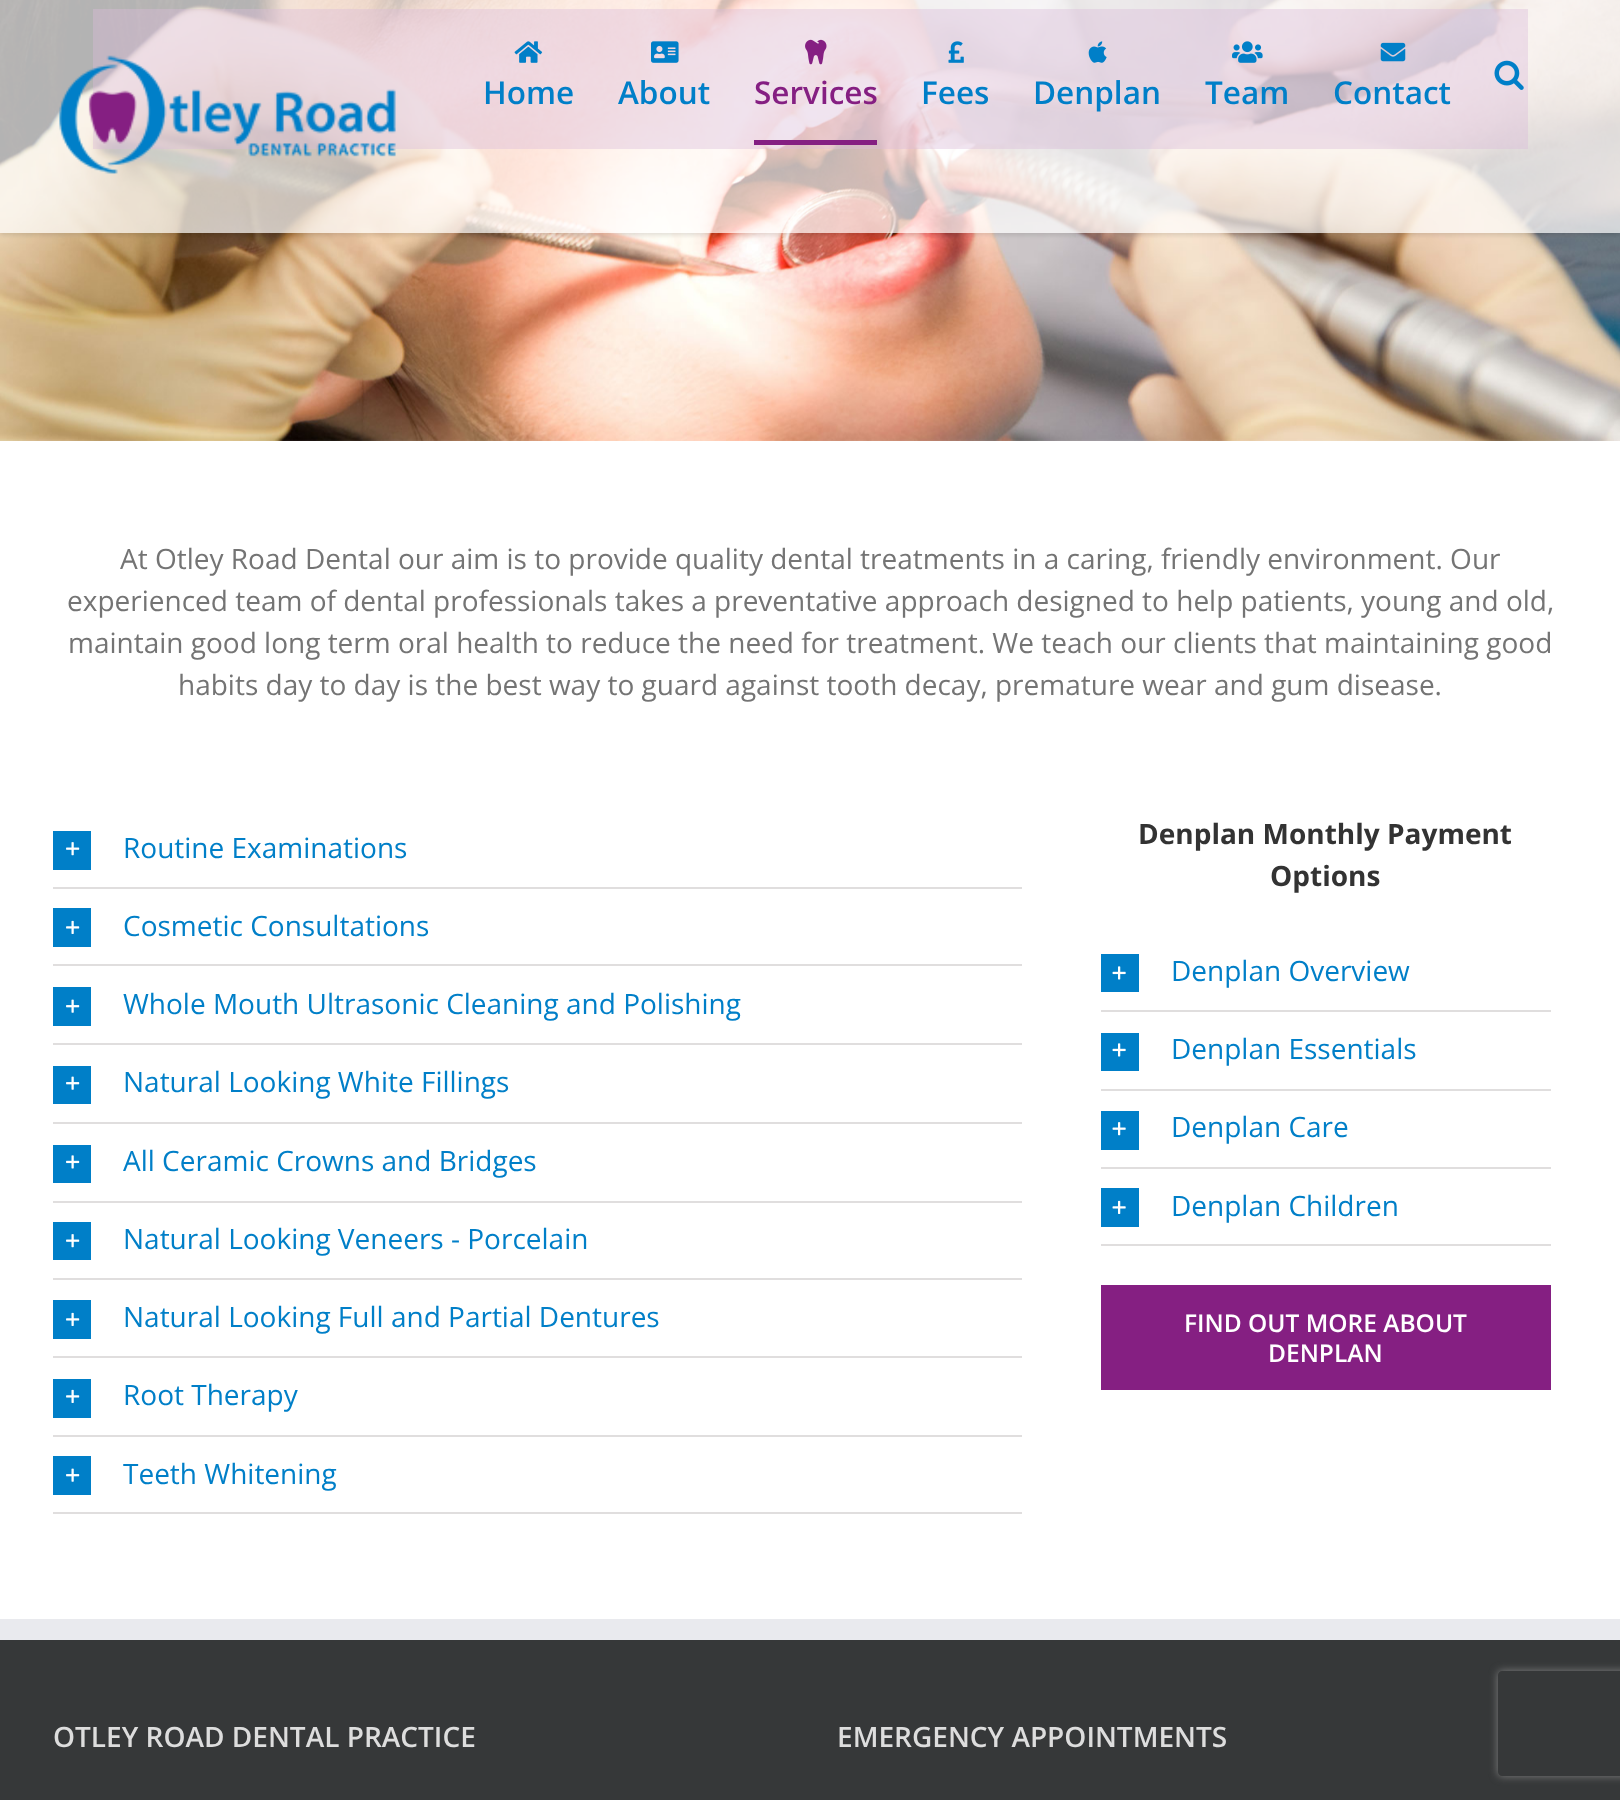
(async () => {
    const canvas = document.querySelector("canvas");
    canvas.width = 1620;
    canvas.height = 1800;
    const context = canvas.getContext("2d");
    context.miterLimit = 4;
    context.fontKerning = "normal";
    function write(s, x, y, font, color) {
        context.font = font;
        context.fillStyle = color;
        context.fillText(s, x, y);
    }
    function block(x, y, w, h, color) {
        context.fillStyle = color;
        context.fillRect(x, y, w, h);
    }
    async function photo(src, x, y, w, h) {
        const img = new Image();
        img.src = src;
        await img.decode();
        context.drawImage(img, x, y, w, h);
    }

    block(0, 0, 1620, 1800, "rgb(255, 255, 255)");
    await photo("media/1.png", 0, 0, 1620, 441);
    block(93, 9, 1435, 140, "rgba(133, 31, 130, 0.4)");
    context.save();
    context.beginPath();
    context.moveTo(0, 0);
    context.lineTo(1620, 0);
    context.lineTo(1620, 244);
    context.lineTo(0, 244);
    context.closePath();
    context.moveTo(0, 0);
    context.lineTo(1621, 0);
    context.lineTo(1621, 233);
    context.lineTo(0, 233);
    context.closePath();
    context.clip("evenodd");
    context.fillStyle = "rgba(0, 0, 0, 0.12)";
    context.filter = "blur(2.5px)";
    context.beginPath();
    context.rect(0, 2, 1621, 233);
    context.fill();
    context.filter = "none";
    context.restore();
    block(0, 0, 1620, 233, "rgba(255, 255, 255, 0.7)");
    await photo("media/2.png", 59, 55, 337, 119);
    await photo("media/3.png", 1494, 60, 30, 30);
    await photo("media/4.png", 514, 41, 29, 22);
    write("Home", 483, 104, "600 31.5px Open Sans", "rgb(0, 127, 200)");
    await photo("media/5.png", 651, 41, 28, 22);
    write("About", 618, 104, "600 31.5px Open Sans", "rgb(0, 127, 200)");
    await photo("media/6.png", 805, 39, 22, 26);
    write("Services", 754, 104, "600 31.5px Open Sans", "rgb(133, 31, 130)");
    block(754, 140, 123, 5, "rgb(133, 31, 130)");
    await photo("media/7.png", 948, 41, 16, 22);
    write("Fees", 921, 104, "600 31.5px Open Sans", "rgb(0, 127, 200)");
    await photo("media/8.png", 1088, 41, 19, 22);
    write("Denplan", 1033, 104, "600 31.5px Open Sans", "rgb(0, 127, 200)");
    await photo("media/9.png", 1232, 41, 31, 22);
    write("Team", 1205, 104, "600 31.5px Open Sans", "rgb(0, 127, 200)");
    await photo("media/10.png", 1380, 42, 26, 20);
    write("Contact", 1333, 104, "600 31.5px Open Sans", "rgb(0, 127, 200)");
    write("At Otley Road Dental our aim is to provide quality dental treatments in a caring, friendly environment. Our", 120, 569, "28px Open Sans", "rgb(116, 116, 116)");
    write("experienced team of dental professionals takes a preventative approach designed to help patients, young and old,", 67, 611, "28px Open Sans", "rgb(116, 116, 116)");
    write("maintain good long term oral health to reduce the need for treatment. We teach our clients that maintaining good", 68, 653, "28px Open Sans", "rgb(116, 116, 116)");
    write("habits day to day is the best way to guard against tooth decay, premature wear and gum disease.", 178, 695, "28px Open Sans", "rgb(116, 116, 116)");
    block(53, 887, 969, 2, "rgb(224, 222, 222)");
    block(53, 831, 38, 39, "rgb(0, 127, 200)");
    await photo("media/11.png", 66, 842, 14, 14);
    write("Routine Examinations", 123, 858, "28px Open Sans", "rgb(0, 127, 200)");
    block(53, 964, 969, 2, "rgb(224, 222, 222)");
    block(53, 908, 38, 39, "rgb(0, 127, 200)");
    await photo("media/12.png", 66, 920, 14, 14);
    write("Cosmetic Consultations", 123, 936, "28px Open Sans", "rgb(0, 127, 200)");
    block(53, 1043, 969, 2, "rgb(224, 222, 222)");
    block(53, 987, 38, 39, "rgb(0, 127, 200)");
    await photo("media/13.png", 66, 999, 14, 14);
    write("Whole Mouth Ultrasonic Cleaning and Polishing", 123, 1014, "28px Open Sans", "rgb(0, 127, 200)");
    block(53, 1122, 969, 2, "rgb(224, 222, 222)");
    block(53, 1066, 38, 38, "rgb(0, 127, 200)");
    await photo("media/13.png", 66, 1076, 14, 14);
    write("Natural Looking White Fillings", 123, 1092, "28px Open Sans", "rgb(0, 127, 200)");
    block(53, 1201, 969, 2, "rgb(224, 222, 222)");
    block(53, 1145, 38, 38, "rgb(0, 127, 200)");
    await photo("media/14.png", 66, 1155, 14, 14);
    write("All Ceramic Crowns and Bridges", 123, 1171, "28px Open Sans", "rgb(0, 127, 200)");
    block(53, 1278, 969, 2, "rgb(224, 222, 222)");
    block(53, 1222, 38, 38, "rgb(0, 127, 200)");
    await photo("media/11.png", 66, 1234, 14, 14);
    write("Natural Looking Veneers - Porcelain", 123, 1249, "28px Open Sans", "rgb(0, 127, 200)");
    block(53, 1356, 969, 2, "rgb(224, 222, 222)");
    block(53, 1300, 38, 39, "rgb(0, 127, 200)");
    await photo("media/12.png", 66, 1312, 14, 14);
    write("Natural Looking Full and Partial Dentures", 123, 1327, "28px Open Sans", "rgb(0, 127, 200)");
    block(53, 1435, 969, 2, "rgb(224, 222, 222)");
    block(53, 1379, 38, 39, "rgb(0, 127, 200)");
    await photo("media/12.png", 66, 1389, 14, 14);
    write("Root Therapy", 123, 1405, "28px Open Sans", "rgb(0, 127, 200)");
    block(53, 1512, 969, 2, "rgb(224, 222, 222)");
    block(53, 1456, 38, 39, "rgb(0, 127, 200)");
    await photo("media/13.png", 66, 1468, 14, 14);
    write("Teeth Whitening", 123, 1484, "28px Open Sans", "rgb(0, 127, 200)");
    write("Denplan Monthly Payment", 1138, 844, "bold 28px Open Sans", "rgb(51, 51, 51)");
    write("Options", 1270, 886, "bold 28px Open Sans", "rgb(51, 51, 51)");
    block(1101, 1010, 450, 2, "rgb(224, 222, 222)");
    block(1101, 954, 38, 38, "rgb(0, 127, 200)");
    await photo("media/15.png", 1112, 966, 14, 14);
    write("Denplan Overview", 1171, 981, "28px Open Sans", "rgb(0, 127, 200)");
    block(1101, 1089, 450, 2, "rgb(224, 222, 222)");
    block(1101, 1033, 38, 38, "rgb(0, 127, 200)");
    await photo("media/15.png", 1112, 1043, 14, 14);
    write("Denplan Essentials", 1171, 1059, "28px Open Sans", "rgb(0, 127, 200)");
    block(1101, 1167, 450, 2, "rgb(224, 222, 222)");
    block(1101, 1111, 38, 39, "rgb(0, 127, 200)");
    await photo("media/16.png", 1112, 1122, 14, 14);
    write("Denplan Care", 1171, 1137, "28px Open Sans", "rgb(0, 127, 200)");
    block(1101, 1244, 450, 2, "rgb(224, 222, 222)");
    block(1101, 1188, 38, 39, "rgb(0, 127, 200)");
    await photo("media/17.png", 1112, 1200, 14, 14);
    write("Denplan Children", 1171, 1216, "28px Open Sans", "rgb(0, 127, 200)");
    block(1101, 1285, 450, 105, "rgb(133, 31, 130)");
    write("FIND OUT MORE ABOUT", 1184, 1332, "600 24.5px Open Sans", "rgb(255, 255, 255)");
    write("DENPLAN", 1268, 1362, "600 24.5px Open Sans", "rgb(255, 255, 255)");
    block(0, 1640, 1620, 160, "rgb(54, 56, 57)");
    block(0, 1619, 1620, 21, "rgb(233, 234, 238)");
    write("OTLEY ROAD DENTAL PRACTICE", 53, 1747, "600 28px Open Sans", "rgb(221, 221, 221)");
    write("EMERGENCY APPOINTMENTS", 837, 1747, "600 28px Open Sans", "rgb(221, 221, 221)");
    context.save();
    context.beginPath();
    context.moveTo(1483, 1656);
    context.lineTo(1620, 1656);
    context.lineTo(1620, 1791);
    context.lineTo(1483, 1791);
    context.closePath();
    context.moveTo(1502, 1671);
    context.lineTo(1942, 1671);
    context.bezierCurveTo(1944, 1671, 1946, 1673, 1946, 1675);
    context.lineTo(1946, 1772);
    context.bezierCurveTo(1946, 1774, 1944, 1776, 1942, 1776);
    context.lineTo(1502, 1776);
    context.bezierCurveTo(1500, 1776, 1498, 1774, 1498, 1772);
    context.lineTo(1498, 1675);
    context.bezierCurveTo(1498, 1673, 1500, 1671, 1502, 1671);
    context.closePath();
    context.clip("evenodd");
    context.fillStyle = "rgb(128, 128, 128)";
    context.filter = "blur(4.5px)";
    context.beginPath();
    context.roundRect(1498, 1671, 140, 105, 4);
    context.fill();
    context.filter = "none";
    context.restore();
})();
